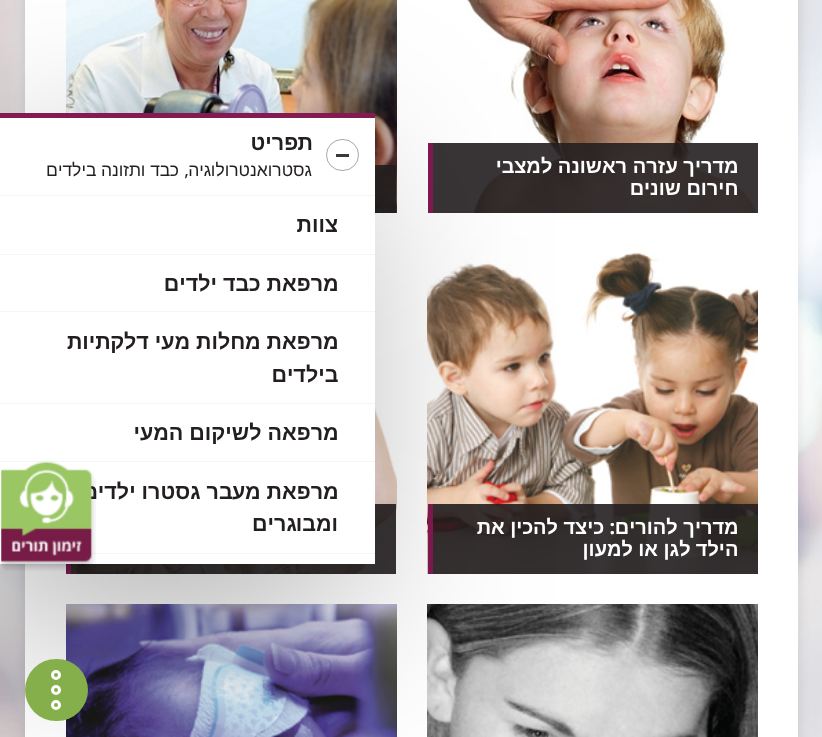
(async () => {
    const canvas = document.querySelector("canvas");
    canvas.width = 822;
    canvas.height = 737;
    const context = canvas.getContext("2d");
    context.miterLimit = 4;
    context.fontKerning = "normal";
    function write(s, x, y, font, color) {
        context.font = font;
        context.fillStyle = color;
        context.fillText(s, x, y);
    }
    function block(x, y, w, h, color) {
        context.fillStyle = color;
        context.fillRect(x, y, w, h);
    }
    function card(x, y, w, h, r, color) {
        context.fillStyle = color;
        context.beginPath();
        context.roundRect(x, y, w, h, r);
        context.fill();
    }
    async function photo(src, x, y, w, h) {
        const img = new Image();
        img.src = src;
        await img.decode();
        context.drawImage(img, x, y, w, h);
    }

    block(0, 0, 822, 737, "rgb(255, 255, 255)");
    await photo("media/1.png", 0, 0, 822, 737);
    context.fillStyle = "rgba(0, 0, 0, 0.1)";
    context.filter = "blur(6px)";
    context.beginPath();
    context.rect(25, -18, 773, 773);
    context.fill();
    context.filter = "none";
    block(25, 0, 773, 737, "rgb(255, 255, 255)");
    await photo("media/2.png", 466, 0, 291, 213);
    block(433, 143, 325, 70, "rgba(35, 31, 32, 0.9)");
    block(428, 143, 5, 70, "rgb(131, 26, 82)");
    context.direction = "rtl";
    write("מדריך עזרה ראשונה למצבי", 738, 173, "bold 20px Noto Sans Hebrew", "rgb(255, 255, 255)");
    write("חירום שונים", 738, 195, "bold 20px Noto Sans Hebrew", "rgb(255, 255, 255)");
    await photo("media/3.png", 66, 0, 331, 213);
    block(375, 165, 21, 48, "rgba(35, 31, 32, 0.9)");
    await photo("media/4.png", 427, 253, 331, 321);
    block(433, 504, 325, 70, "rgba(35, 31, 32, 0.9)");
    block(428, 504, 5, 70, "rgb(131, 26, 82)");
    write("מדריך להורים", 738, 534, "bold 20px Noto Sans Hebrew", "rgb(255, 255, 255)");
    write(":", 615, 534, "bold 20px Noto Sans", "rgb(255, 255, 255)");
    write("כיצד להכין את", 604, 534, "bold 20px Noto Sans Hebrew", "rgb(255, 255, 255)");
    write("הילד לגן או למעון", 738, 556, "bold 20px Noto Sans Hebrew", "rgb(255, 255, 255)");
    await photo("media/5.png", 71, 255, 326, 319);
    block(71, 504, 325, 70, "rgba(35, 31, 32, 0.9)");
    block(66, 564, 5, 10, "rgb(131, 26, 82)");
    await photo("media/6.png", 427, 604, 331, 133);
    await photo("media/7.png", 66, 604, 331, 133);
    context.fillStyle = "rgba(0, 0, 0, 0.3)";
    context.filter = "blur(94px)";
    context.beginPath();
    context.rect(-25, 175, 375, 451);
    context.fill();
    context.filter = "none";
    block(0, 113, 375, 5, "rgb(131, 26, 82)");
    block(0, 118, 375, 77, "rgb(255, 255, 255)");
    context.beginPath();
    context.roundRect(326.5, 139.5, 32, 31, 15.5);
    context.strokeStyle = "rgb(168, 168, 168)";
    context.stroke();
    block(336, 154, 13, 3, "rgb(58, 58, 58)");
    write("תפריט", 313, 150, "bold 21.5px Noto Sans Hebrew", "rgb(35, 31, 32)");
    write("גסטרואנטרולוגיה", 312, 176, "17.5px Noto Sans Hebrew", "rgb(35, 31, 32)");
    write(",", 189, 176, "17.5px Noto Sans", "rgb(35, 31, 32)");
    write("כבד ותזונה בילדים", 179, 176, "17.5px Noto Sans Hebrew", "rgb(35, 31, 32)");
    block(0, 196, 375, 58, "rgb(255, 255, 255)");
    block(0, 195, 375, 1, "rgb(245, 245, 245)");
    write("צוות", 338, 232, "bold 21.5px Noto Sans Hebrew", "rgb(35, 31, 32)");
    block(0, 255, 375, 56, "rgb(255, 255, 255)");
    block(0, 254, 375, 1, "rgb(245, 245, 245)");
    write("מרפאת כבד ילדים", 338, 291, "bold 21.5px Noto Sans Hebrew", "rgb(35, 31, 32)");
    block(0, 312, 375, 91, "rgb(255, 255, 255)");
    block(0, 311, 375, 1, "rgb(245, 245, 245)");
    write("מרפאת מחלות מעי דלקתיות", 338, 349, "bold 21.5px Noto Sans Hebrew", "rgb(35, 31, 32)");
    write("בילדים", 338, 382, "bold 21.5px Noto Sans Hebrew", "rgb(35, 31, 32)");
    block(0, 404, 375, 57, "rgb(255, 255, 255)");
    block(0, 403, 375, 1, "rgb(245, 245, 245)");
    write("מרפאה לשיקום המעי", 338, 440, "bold 21.5px Noto Sans Hebrew", "rgb(35, 31, 32)");
    block(0, 462, 375, 91, "rgb(255, 255, 255)");
    block(0, 461, 375, 1, "rgb(245, 245, 245)");
    write("מרפאת מעבר גסטרו ילדים", 338, 499, "bold 21.5px Noto Sans Hebrew", "rgb(35, 31, 32)");
    write("ומבוגרים", 338, 531, "bold 21.5px Noto Sans Hebrew", "rgb(35, 31, 32)");
    block(0, 554, 375, 10, "rgb(255, 255, 255)");
    block(0, 553, 375, 1, "rgb(245, 245, 245)");
    card(25, 659, 63, 62, 31, "rgb(133, 175, 75)");
    context.beginPath();
    context.arc(56, 690, 3.5, 0, Math.PI * 2);
    context.strokeStyle = "rgb(255, 255, 255)";
    context.lineWidth = 3;
    context.stroke();
    context.beginPath();
    context.arc(56, 675, 3.5, 0, Math.PI * 2);
    context.stroke();
    context.beginPath();
    context.arc(56, 705, 3.5, 0, Math.PI * 2);
    context.stroke();
    await photo("media/8.png", 1, 461, 95, 110);
})();
